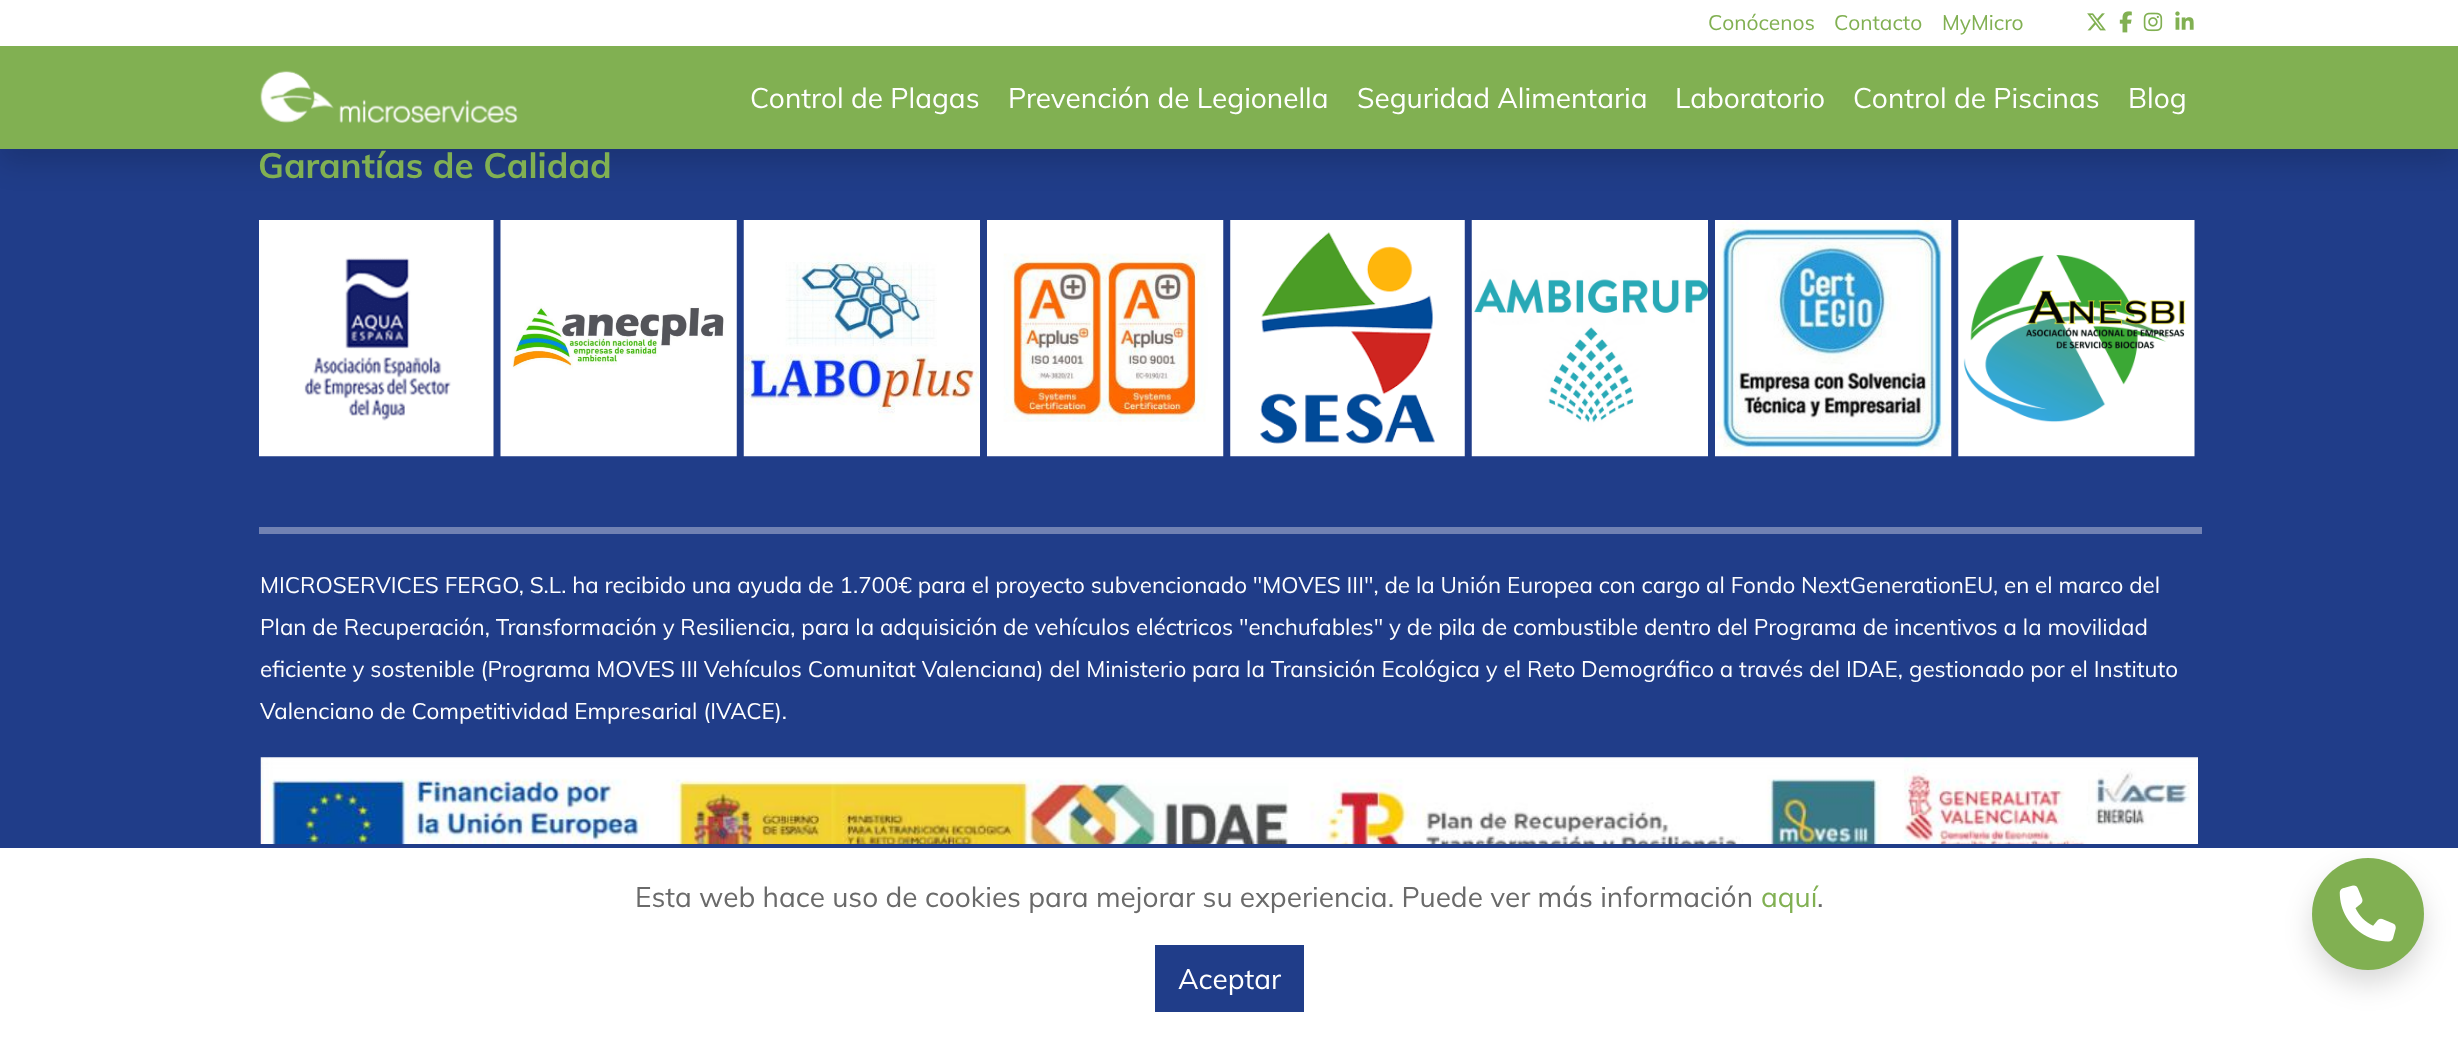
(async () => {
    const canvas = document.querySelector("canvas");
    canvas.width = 2458;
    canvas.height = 1052;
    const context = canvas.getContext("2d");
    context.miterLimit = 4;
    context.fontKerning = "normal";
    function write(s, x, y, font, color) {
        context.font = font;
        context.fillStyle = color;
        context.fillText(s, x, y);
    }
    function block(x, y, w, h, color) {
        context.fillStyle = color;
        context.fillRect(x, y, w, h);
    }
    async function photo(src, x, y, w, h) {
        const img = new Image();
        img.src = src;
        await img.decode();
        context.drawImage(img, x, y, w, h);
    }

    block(0, 0, 2458, 1052, "rgb(32, 61, 137)");
    context.fillStyle = "rgba(0, 0, 0, 0.15)";
    context.filter = "blur(14px)";
    context.beginPath();
    context.rect(0, 14, 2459, 149);
    context.fill();
    context.filter = "none";
    block(0, 0, 2458, 46, "rgb(255, 255, 255)");
    write("Conócenos", 1708, 30, "21px Muli", "rgb(129, 176, 82)");
    write("Contacto", 1834, 30, "21px Muli", "rgb(129, 176, 82)");
    write("MyMicro", 1942, 30, "21px Muli", "rgb(129, 176, 82)");
    await photo("media/1.png", 2087, 13, 19, 18);
    await photo("media/2.png", 2119, 11, 13, 22);
    await photo("media/3.png", 2143, 12, 20, 20);
    await photo("media/4.png", 2175, 11, 19, 19);
    block(0, 46, 2458, 103, "rgb(129, 176, 82)");
    await photo("media/5.png", 260, 70, 258, 53);
    write("Control de Plagas", 750, 108, "28px Muli", "rgb(255, 255, 255)");
    write("Prevención de Legionella", 1008, 108, "28px Muli", "rgb(255, 255, 255)");
    write("Seguridad Alimentaria", 1357, 108, "28px Muli", "rgb(255, 255, 255)");
    write("Laboratorio", 1675, 108, "28px Muli", "rgb(255, 255, 255)");
    write("Control de Piscinas", 1853, 108, "28px Muli", "rgb(255, 255, 255)");
    write("Blog", 2128, 108, "28px Muli", "rgb(255, 255, 255)");
    block(259, 527, 1943, 7, "rgb(113, 130, 179)");
    write("Garantías de Calidad", 258, 178, "bold 35px Muli", "rgb(129, 176, 82)");
    await photo("media/6.png", 259, 220, 235, 237);
    await photo("media/7.png", 500, 220, 237, 237);
    await photo("media/8.png", 743, 220, 237, 237);
    await photo("media/9.png", 987, 220, 237, 237);
    await photo("media/10.png", 1230, 220, 235, 237);
    await photo("media/11.png", 1471, 220, 237, 237);
    await photo("media/12.png", 1715, 220, 237, 237);
    await photo("media/13.png", 1958, 220, 237, 237);
    write("MICROSERVICES FERGO, S.L. ha recibido una ayuda de 1.700€ para el proyecto subvencionado \"MOVES III\", de la Unión Europea con cargo al Fondo NextGenerationEU, en el marco del", 260, 593, "22.4px Muli", "rgb(255, 255, 255)");
    write("Plan de Recuperación, Transformación y Resiliencia, para la adquisición de vehículos eléctricos \"enchufables\" y de pila de combustible dentro del Programa de incentivos a la movilidad", 260, 635, "22.4px Muli", "rgb(255, 255, 255)");
    write("eficiente y sostenible (Programa MOVES III Vehículos Comunitat Valenciana) del Ministerio para la Transición Ecológica y el Reto Demográfico a través del IDAE, gestionado por el Instituto", 260, 677, "22.4px Muli", "rgb(255, 255, 255)");
    write("Valenciano de Competitividad Empresarial (IVACE).", 260, 719, "22.4px Muli", "rgb(255, 255, 255)");
    await photo("media/14.png", 260, 757, 1938, 87);
    block(0, 848, 2458, 204, "rgb(255, 255, 255)");
    write("Esta web hace uso de cookies para mejorar su experiencia. Puede ver más información", 635, 907, "28px Muli", "rgb(106, 106, 106)");
    write("aquí", 1761, 907, "28px Muli", "rgb(129, 176, 82)");
    write(".", 1817, 907, "28px Muli", "rgb(106, 106, 106)");
    block(1155, 945, 149, 67, "rgb(32, 61, 137)");
    write("Aceptar", 1178, 989, "28px Muli", "rgb(255, 255, 255)");
    context.fillStyle = "rgba(0, 0, 0, 0.15)";
    context.filter = "blur(14px)";
    context.beginPath();
    context.roundRect(2312, 872, 112, 112, 56);
    context.fill();
    context.filter = "none";
    context.fillStyle = "rgb(129, 176, 82)";
    context.beginPath();
    context.arc(2368, 914, 56, 0, Math.PI * 2);
    context.fill();
    await photo("media/15.png", 2339, 885, 57, 57);
})();
